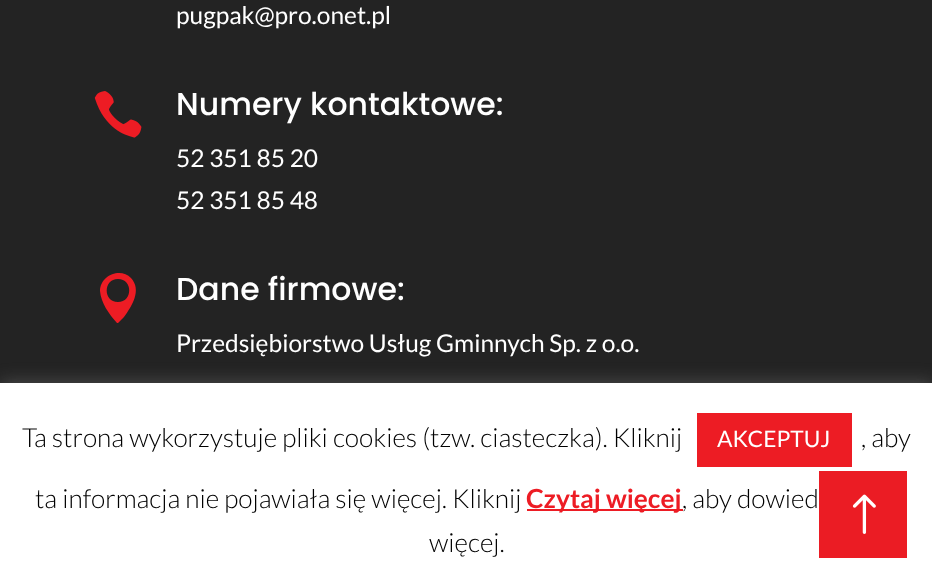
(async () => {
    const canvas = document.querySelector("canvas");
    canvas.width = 932;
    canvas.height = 583;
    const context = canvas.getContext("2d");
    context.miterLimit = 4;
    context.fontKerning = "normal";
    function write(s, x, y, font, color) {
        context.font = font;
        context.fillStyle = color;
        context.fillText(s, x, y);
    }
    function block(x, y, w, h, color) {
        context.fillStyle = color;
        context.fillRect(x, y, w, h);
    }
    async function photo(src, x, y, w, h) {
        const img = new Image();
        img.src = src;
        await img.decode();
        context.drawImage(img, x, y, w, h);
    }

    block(0, 0, 932, 583, "rgb(35, 35, 35)");
    write("pugpak@pro.onet.pl", 176, 24, "24.5px Lato", "rgb(255, 255, 255)");
    await photo("media/1.png", 94, 91, 48, 47);
    write("Numery kontaktowe:", 176, 115, "500 31.5px Poppins", "rgb(255, 255, 255)");
    write("52 351 85 20", 176, 167, "24.5px Lato", "rgb(255, 255, 255)");
    write("52 351 85 48", 176, 209, "24.5px Lato", "rgb(255, 255, 255)");
    context.fillStyle = "rgb(237, 28, 36)";
    context.beginPath();
    context.moveTo(117, 323);
    context.lineTo(118, 323);
    context.lineTo(124, 317);
    context.bezierCurveTo(132, 306, 142, 290, 131, 278);
    context.bezierCurveTo(121, 267, 100, 275, 100, 291);
    context.bezierCurveTo(101, 303, 109, 314, 117, 323);
    context.closePath();
    context.moveTo(118, 279);
    context.bezierCurveTo(133, 279, 133, 302, 118, 302);
    context.bezierCurveTo(103, 302, 103, 279, 118, 279);
    context.closePath();
    context.fill();
    write("Dane firmowe:", 176, 300, "500 31.5px Poppins", "rgb(255, 255, 255)");
    write("Przedsiębiorstwo Usług Gminnych Sp. z o.o.", 176, 352, "24.5px Lato", "rgb(255, 255, 255)");
    context.fillStyle = "rgba(172, 171, 171, 0.3)";
    context.filter = "blur(9px)";
    context.beginPath();
    context.rect(0, 382, 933, 201);
    context.fill();
    context.filter = "none";
    block(0, 383, 932, 200, "rgb(255, 255, 255)");
    write("Ta strona wykorzystuje pliki cookies (tzw. ciasteczka). Kliknij", 22, 447, "300 26.25px Lato", "rgb(0, 0, 0)");
    block(697, 413, 155, 54, "rgb(237, 28, 36)");
    write("AKCEPTUJ", 717, 447, "22.75px Lato", "rgb(255, 255, 255)");
    write(", aby", 861, 447, "300 26.25px Lato", "rgb(0, 0, 0)");
    write("ta informacja nie pojawiała się więcej. Kliknij", 35, 508, "300 26.25px Lato", "rgb(0, 0, 0)");
    block(527, 509, 156, 2, "rgb(237, 28, 36)");
    write("Czytaj więcej", 526, 508, "bold 26.25px Lato", "rgb(237, 28, 36)");
    write(", aby dowied", 682, 508, "300 26.25px Lato", "rgb(0, 0, 0)");
    write("więcej.", 429, 552, "300 26.25px Lato", "rgb(0, 0, 0)");
    block(819, 471, 88, 87, "rgb(235, 28, 36)");
    await photo("media/2.png", 852, 494, 24, 40);
})();
